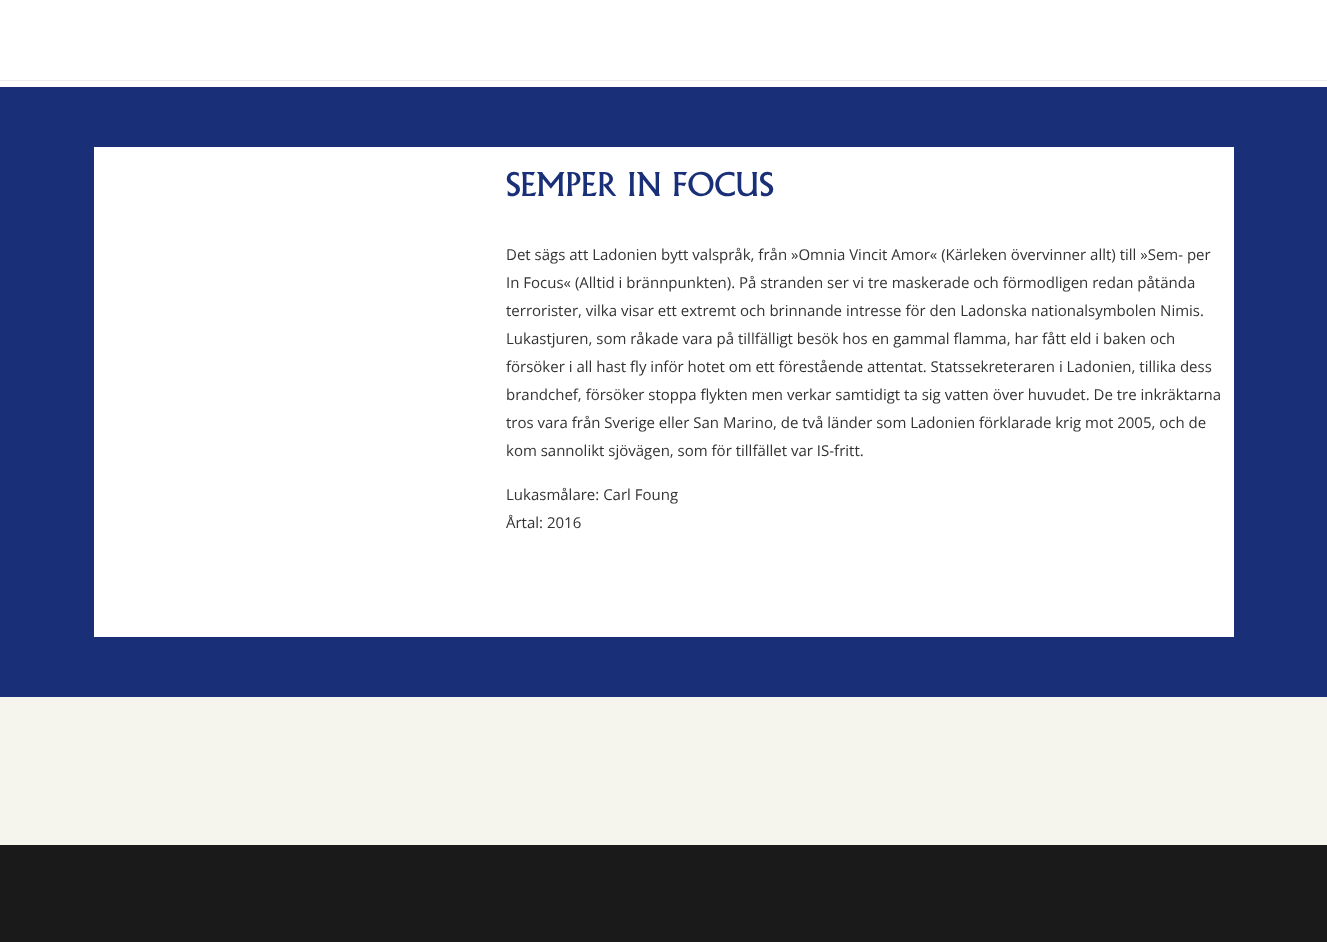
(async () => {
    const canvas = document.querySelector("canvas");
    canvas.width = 1327;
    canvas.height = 942;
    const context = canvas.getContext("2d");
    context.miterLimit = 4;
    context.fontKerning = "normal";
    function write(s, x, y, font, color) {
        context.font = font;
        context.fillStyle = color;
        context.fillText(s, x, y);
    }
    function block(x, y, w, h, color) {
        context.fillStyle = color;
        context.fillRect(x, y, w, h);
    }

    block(0, 0, 1327, 942, "rgb(255, 255, 255)");
    block(0, 80, 1327, 1, "rgb(235, 235, 235)");
    block(0, 87, 1327, 610, "rgb(25, 48, 120)");
    block(94, 147, 1140, 490, "rgb(255, 255, 255)");
    write("SEMPER IN FOCUS", 506, 196, "500 32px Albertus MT", "rgb(25, 48, 120)");
    write("Det sägs att Ladonien bytt valspråk, från »Omnia Vincit Amor« (Kärleken övervinner allt) till »Sem- per", 506, 260, "15px Open Sans", "rgb(51, 51, 51)");
    write("In Focus« (Alltid i brännpunkten). På stranden ser vi tre maskerade och förmodligen redan påtända", 506, 288, "15px Open Sans", "rgb(51, 51, 51)");
    write("terrorister, vilka visar ett extremt och brinnande intresse för den Ladonska nationalsymbolen Nimis.", 506, 316, "15px Open Sans", "rgb(51, 51, 51)");
    write("Lukastjuren, som råkade vara på tillfälligt besök hos en gammal flamma, har fått eld i baken och", 506, 344, "15px Open Sans", "rgb(51, 51, 51)");
    write("försöker i all hast fly inför hotet om ett förestående attentat. Statssekreteraren i Ladonien, tillika dess", 506, 372, "15px Open Sans", "rgb(51, 51, 51)");
    write("brandchef, försöker stoppa flykten men verkar samtidigt ta sig vatten över huvudet. De tre inkräktarna", 506, 400, "15px Open Sans", "rgb(51, 51, 51)");
    write("tros vara från Sverige eller San Marino, de två länder som Ladonien förklarade krig mot 2005, och de", 506, 428, "15px Open Sans", "rgb(51, 51, 51)");
    write("kom sannolikt sjövägen, som för tillfället var IS-fritt.", 506, 456, "15px Open Sans", "rgb(51, 51, 51)");
    write("Lukasmålare: Carl Foung", 506, 500, "15px Open Sans", "rgb(51, 51, 51)");
    write("Årtal: 2016", 506, 528, "15px Open Sans", "rgb(51, 51, 51)");
    block(0, 697, 1327, 148, "rgb(245, 245, 238)");
    block(0, 845, 1327, 97, "rgb(26, 26, 26)");
})();
